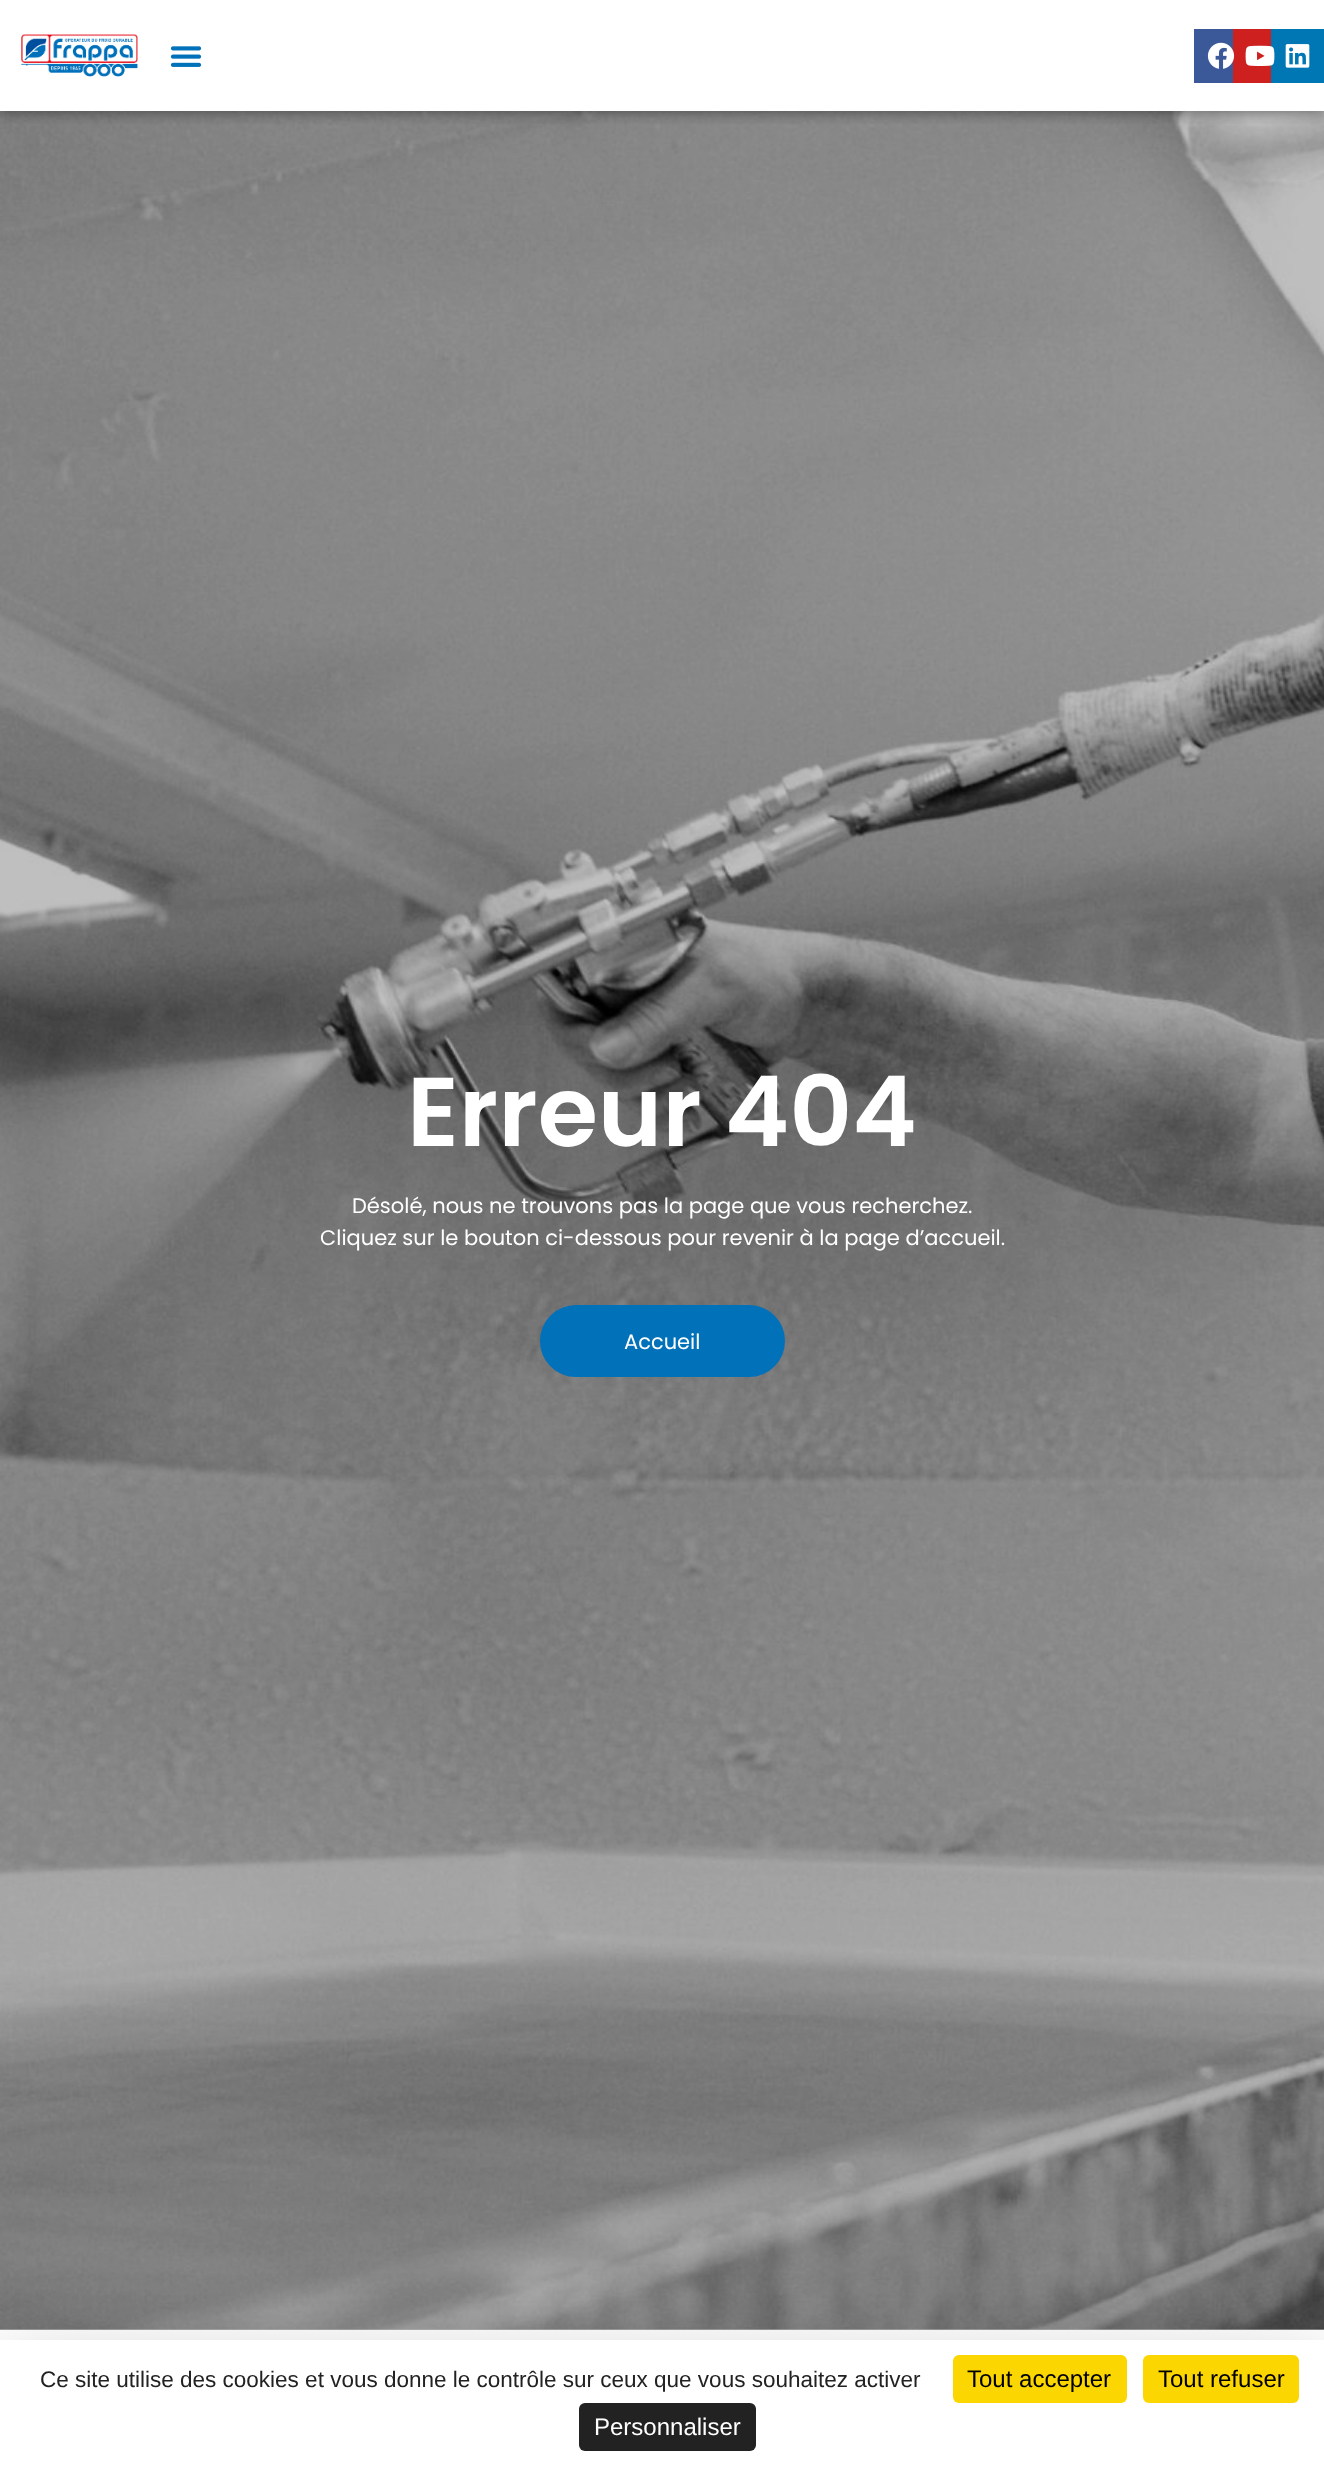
(async () => {
    const canvas = document.querySelector("canvas");
    canvas.width = 1324;
    canvas.height = 2466;
    const context = canvas.getContext("2d");
    context.miterLimit = 4;
    context.fontKerning = "normal";
    function write(s, x, y, font, color) {
        context.font = font;
        context.fillStyle = color;
        context.fillText(s, x, y);
    }
    function block(x, y, w, h, color) {
        context.fillStyle = color;
        context.fillRect(x, y, w, h);
    }
    function card(x, y, w, h, r, color) {
        context.fillStyle = color;
        context.beginPath();
        context.roundRect(x, y, w, h, r);
        context.fill();
    }
    async function photo(src, x, y, w, h) {
        const img = new Image();
        img.src = src;
        await img.decode();
        context.drawImage(img, x, y, w, h);
    }

    block(0, 0, 1324, 2466, "rgb(255, 255, 255)");
    block(0, 2329, 1324, 1, "rgb(191, 191, 191)");
    await photo("media/6.png", 0, 111, 1324, 2219);
    context.save();
    context.beginPath();
    context.rect(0, 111, 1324, 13);
    context.clip();
    context.fillStyle = "rgba(0, 0, 0, 0.5)";
    context.filter = "blur(7.5px)";
    context.beginPath();
    context.rect(0, 0, 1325, 111);
    context.fill();
    context.filter = "none";
    context.restore();
    await photo("media/1.png", 21, 34, 117, 43);
    await photo("media/2.png", 170, 46, 32, 21);
    block(1194, 29, 39, 54, "rgb(59, 89, 152)");
    block(1233, 29, 38, 54, "rgb(205, 32, 31)");
    await photo("media/3.png", 1207, 42, 28, 27);
    block(1271, 29, 53, 54, "rgb(0, 119, 181)");
    await photo("media/4.png", 1245, 45, 30, 21);
    await photo("media/5.png", 1285, 44, 25, 24);
    write("Erreur 404", 407, 1146, "600 97.5px Poppins", "rgb(255, 255, 255)");
    write("Désolé, nous ne trouvons pas la page que vous recherchez.", 352, 1213, "21px Poppins", "rgb(255, 255, 255)");
    write("Cliquez sur le bouton ci-dessous pour revenir à la page d’accueil.", 320, 1245, "21px Poppins", "rgb(255, 255, 255)");
    context.fillStyle = "rgb(1, 113, 186)";
    context.beginPath();
    context.roundRect(541, 1306, 243, 70, 35);
    context.fill();
    context.strokeStyle = "rgb(1, 113, 186)";
    context.lineWidth = 2;
    context.stroke();
    write("Accueil", 624, 1349, "21px Poppins", "rgb(255, 255, 255)");
    context.fillStyle = "rgba(0, 0, 0, 0.25)";
    context.filter = "blur(45px)";
    context.beginPath();
    context.rect(0, 2370, 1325, 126);
    context.fill();
    context.filter = "none";
    block(0, 2340, 1324, 126, "rgb(255, 255, 255)");
    write("Ce site utilise des cookies et vous donne le contrôle sur ceux que vous souhaitez activer", 40, 2387, "22.5px Liberation Sans", "rgb(34, 34, 34)");
    card(953, 2355, 174, 48, 6, "rgb(251, 214, 0)");
    write("Tout accepter", 967, 2387, "24px Liberation Sans", "rgb(0, 0, 0)");
    card(1143, 2355, 156, 48, 6, "rgb(251, 214, 0)");
    write("Tout refuser", 1158, 2387, "24px Liberation Sans", "rgb(0, 0, 0)");
    card(579, 2403, 177, 48, 6, "rgb(34, 34, 34)");
    write("Personnaliser", 594, 2435, "24px Liberation Sans", "rgb(255, 255, 255)");
})();
